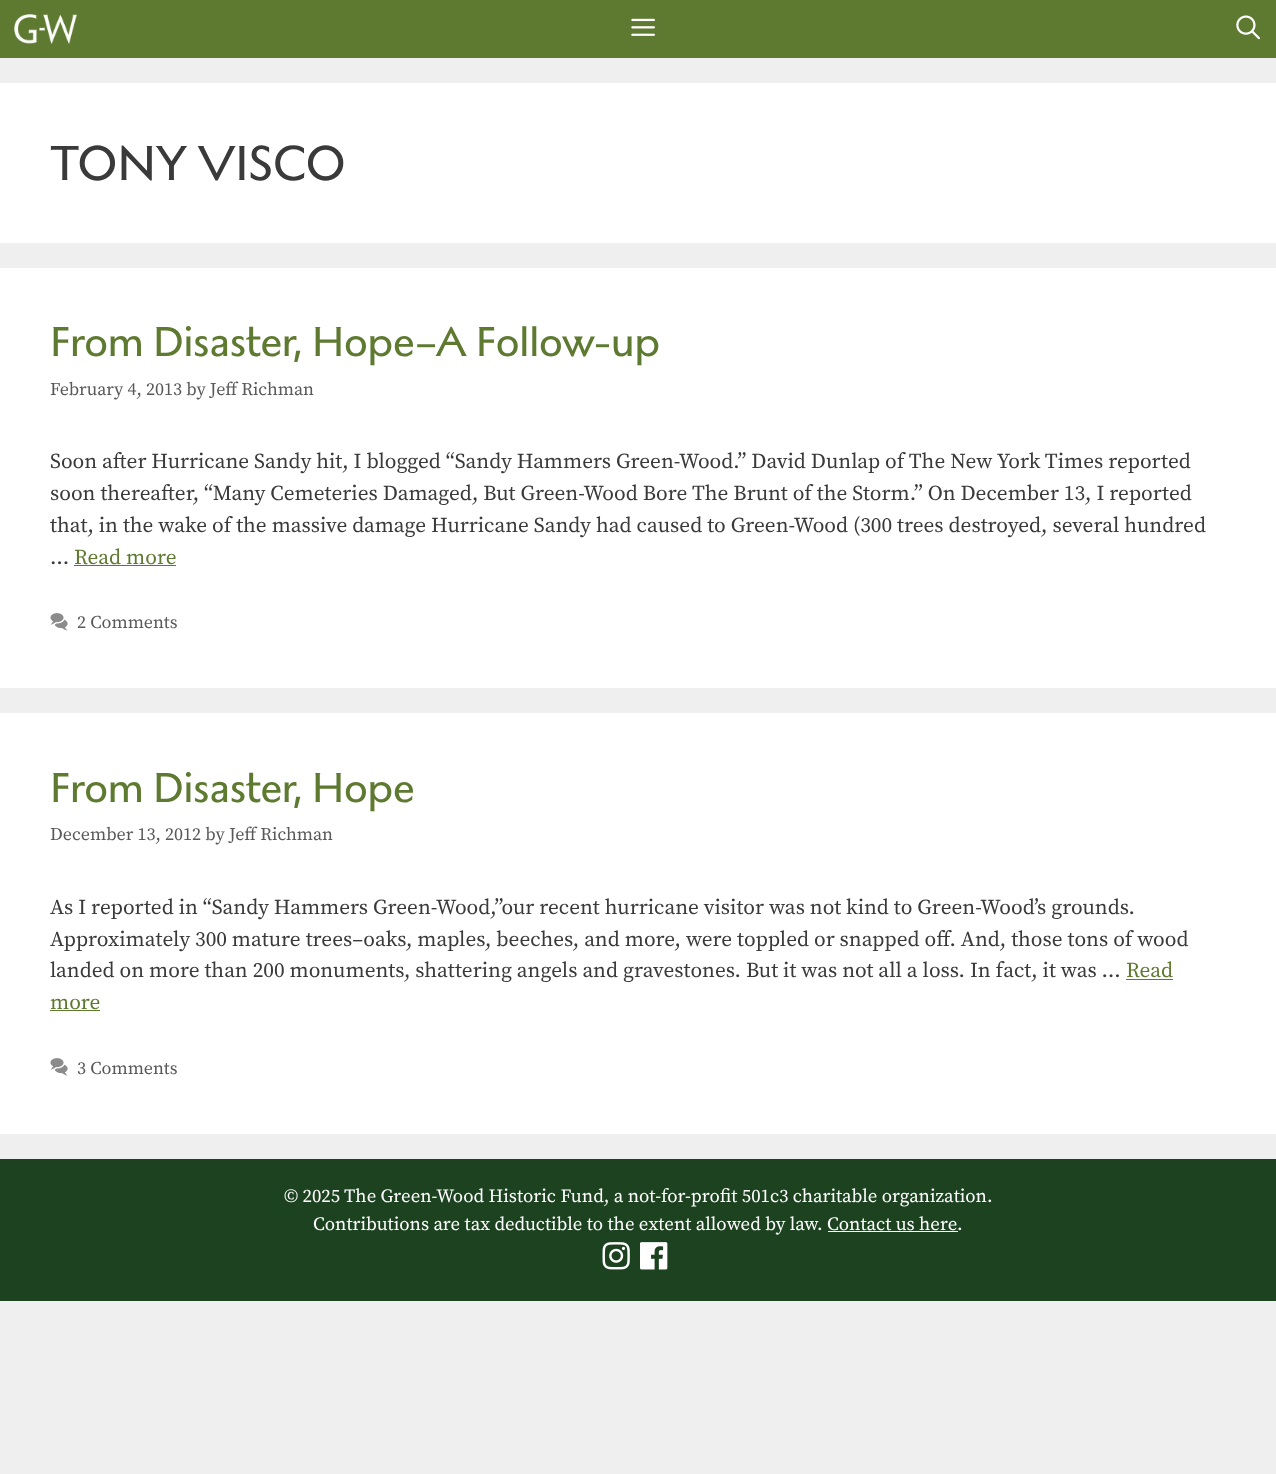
(async () => {
    const canvas = document.querySelector("canvas");
    canvas.width = 1276;
    canvas.height = 1474;
    const context = canvas.getContext("2d");
    context.miterLimit = 4;
    context.fontKerning = "normal";
    function write(s, x, y, font, color) {
        context.font = font;
        context.fillStyle = color;
        context.fillText(s, x, y);
    }
    function block(x, y, w, h, color) {
        context.fillStyle = color;
        context.fillRect(x, y, w, h);
    }
    async function photo(src, x, y, w, h) {
        const img = new Image();
        img.src = src;
        await img.decode();
        context.drawImage(img, x, y, w, h);
    }

    block(0, 0, 1276, 1474, "rgb(239, 239, 239)");
    block(0, 0, 1276, 58, "rgb(94, 121, 48)");
    await photo("media/1.png", 14, 14, 64, 30);
    await photo("media/2.png", 631, 18, 24, 18);
    await photo("media/3.png", 1236, 15, 24, 25);
    block(0, 83, 1276, 160, "rgb(255, 255, 255)");
    write("TONY VISCO", 50, 180, "50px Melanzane", "rgb(58, 58, 58)");
    block(0, 268, 1276, 420, "rgb(255, 255, 255)");
    write("From Disaster, Hope–A Follow-up", 50, 356, "42.5px Melanzane", "rgb(94, 121, 48)");
    write("February 4, 2013 by Jeff Richman", 50, 395, "18px Source Serif Pro", "rgb(89, 89, 89)");
    write("Soon after Hurricane Sandy hit, I blogged “Sandy Hammers Green-Wood.” David Dunlap of The New York Times reported", 50, 468, "21.25px Source Serif Pro", "rgb(58, 58, 58)");
    write("soon thereafter, “Many Cemeteries Damaged, But Green-Wood Bore The Brunt of the Storm.” On December 13, I reported", 50, 500, "21.25px Source Serif Pro", "rgb(58, 58, 58)");
    write("that, in the wake of the massive damage Hurricane Sandy had caused to Green-Wood (300 trees destroyed, several hundred", 50, 532, "21.25px Source Serif Pro", "rgb(58, 58, 58)");
    write("…", 50, 564, "21.25px Source Serif Pro", "rgb(58, 58, 58)");
    write("Read more", 74, 564, "21.25px Source Serif Pro", "rgb(94, 121, 48)");
    block(74, 565, 102, 1, "rgb(94, 121, 48)");
    await photo("media/4.png", 50, 613, 18, 18);
    write("2 Comments", 77, 628, "18px Source Serif Pro", "rgb(89, 89, 89)");
    block(0, 713, 1276, 421, "rgb(255, 255, 255)");
    write("From Disaster, Hope", 50, 802, "42.5px Melanzane", "rgb(94, 121, 48)");
    write("December 13, 2012 by Jeff Richman", 50, 840, "18px Source Serif Pro", "rgb(89, 89, 89)");
    write("As I reported in “Sandy Hammers Green-Wood,”our recent hurricane visitor was not kind to Green-Wood’s grounds.", 50, 914, "21.25px Source Serif Pro", "rgb(58, 58, 58)");
    write("Approximately 300 mature trees–oaks, maples, beeches, and more, were toppled or snapped off. And, those tons of wood", 50, 946, "21.25px Source Serif Pro", "rgb(58, 58, 58)");
    write("landed on more than 200 monuments, shattering angels and gravestones. But it was not all a loss. In fact, it was …", 50, 977, "21.25px Source Serif Pro", "rgb(58, 58, 58)");
    write("Read", 1126, 977, "21.25px Source Serif Pro", "rgb(94, 121, 48)");
    block(1126, 979, 47, 1, "rgb(94, 121, 48)");
    write("more", 50, 1009, "21.25px Source Serif Pro", "rgb(94, 121, 48)");
    block(50, 1010, 50, 1, "rgb(94, 121, 48)");
    await photo("media/4.png", 50, 1058, 18, 18);
    write("3 Comments", 77, 1074, "18px Source Serif Pro", "rgb(89, 89, 89)");
    block(0, 1159, 1276, 142, "rgb(28, 66, 32)");
    write("© 2025 The Green-Wood Historic Fund, a not-for-profit 501c3 charitable organization.", 284, 1202, "18.75px Source Serif Pro", "rgb(255, 255, 255)");
    write("Contributions are tax deductible to the extent allowed by law.", 313, 1230, "18.75px Source Serif Pro", "rgb(255, 255, 255)");
    write("Contact us here", 827, 1230, "18.75px Source Serif Pro", "rgb(255, 255, 255)");
    block(828, 1231, 130, 1, "rgb(255, 255, 255)");
    write(".", 957, 1230, "18.75px Source Serif Pro", "rgb(255, 255, 255)");
    await photo("media/5.png", 602, 1242, 28, 28);
    await photo("media/6.png", 640, 1242, 28, 28);
})();
